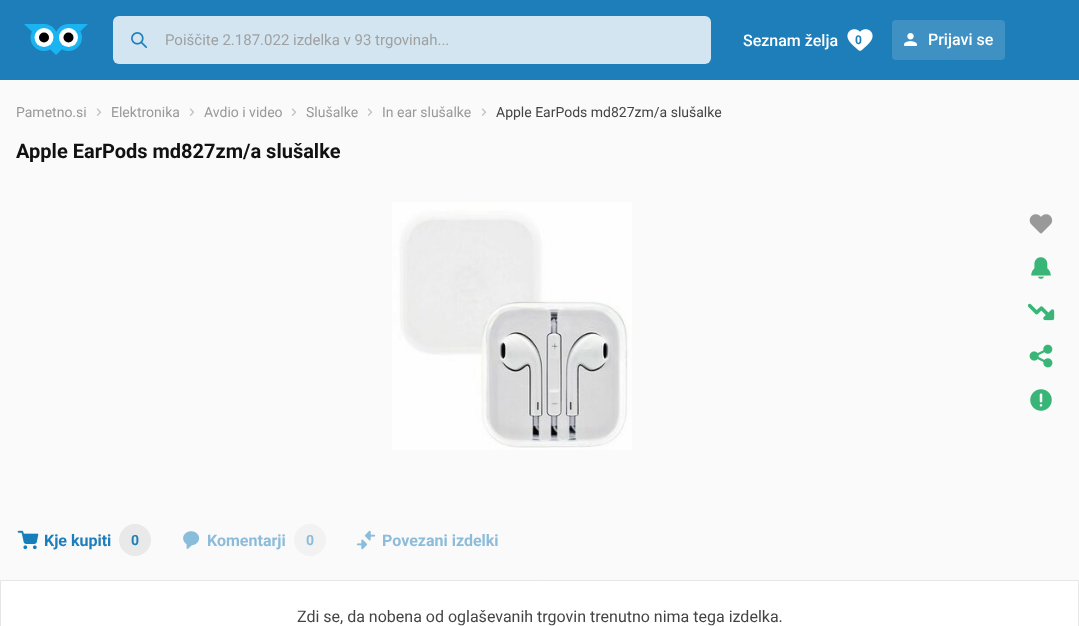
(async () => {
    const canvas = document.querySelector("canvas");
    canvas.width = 1079;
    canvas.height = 626;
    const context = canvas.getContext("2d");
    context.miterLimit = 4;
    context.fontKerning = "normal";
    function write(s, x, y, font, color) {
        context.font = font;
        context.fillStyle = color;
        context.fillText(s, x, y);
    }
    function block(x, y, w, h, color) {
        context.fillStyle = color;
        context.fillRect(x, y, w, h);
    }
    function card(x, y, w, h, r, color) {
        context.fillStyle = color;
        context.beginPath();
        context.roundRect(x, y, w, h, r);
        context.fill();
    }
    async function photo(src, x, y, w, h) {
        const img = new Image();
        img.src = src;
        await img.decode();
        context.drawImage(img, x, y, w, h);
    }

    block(0, 0, 1079, 626, "rgb(250, 250, 250)");
    block(0, 0, 1079, 80, "rgb(29, 126, 186)");
    context.fillStyle = "rgb(26, 181, 241)";
    context.beginPath();
    context.moveTo(24, 24);
    context.lineTo(56, 55);
    context.lineTo(88, 24);
    context.lineTo(68, 24);
    context.lineTo(56, 32);
    context.lineTo(44, 24);
    context.lineTo(24, 24);
    context.lineTo(26, 24);
    context.closePath();
    context.fill();
    context.beginPath();
    context.arc(44, 37.5, 13.5, 0, Math.PI * 2);
    context.fill();
    context.beginPath();
    context.arc(68.5, 37.5, 13.5, 0, Math.PI * 2);
    context.fill();
    context.fillStyle = "rgb(255, 255, 255)";
    context.beginPath();
    context.arc(44, 37.5, 9.5, 0, Math.PI * 2);
    context.fill();
    context.beginPath();
    context.arc(68.5, 37.5, 9.5, 0, Math.PI * 2);
    context.fill();
    context.fillStyle = "rgb(0, 0, 0)";
    context.beginPath();
    context.arc(44, 37.5, 5, 0, Math.PI * 2);
    context.fill();
    context.beginPath();
    context.arc(68.5, 37.5, 5, 0, Math.PI * 2);
    context.fill();
    card(113, 16, 598, 48, 6, "rgb(210, 229, 241)");
    await photo("media/1.png", 131, 32, 16, 16);
    write("Poiščite 2.187.022 izdelka v 93 trgovinah...", 165, 45, "15px Roboto", "rgb(160, 160, 160)");
    write("Seznam želja", 743, 46, "500 16px Roboto", "rgb(255, 255, 255)");
    await photo("media/2.png", 847, 29, 26, 22);
    write("0", 855, 44, "bold 12px Roboto", "rgb(29, 126, 186)");
    card(892, 20, 113, 40, 4, "rgb(63, 145, 196)");
    await photo("media/3.png", 904, 33, 13, 13);
    write("Prijavi se", 928, 45, "500 16px Roboto", "rgb(255, 255, 255)");
    write("Pametno.si", 16, 117, "14px Roboto", "rgb(153, 153, 153)");
    await photo("media/4.png", 96, 108, 6, 8);
    write("Elektronika", 111, 117, "14px Roboto", "rgb(153, 153, 153)");
    await photo("media/4.png", 189, 108, 6, 8);
    write("Avdio i video", 204, 117, "14px Roboto", "rgb(153, 153, 153)");
    await photo("media/4.png", 291, 108, 6, 8);
    write("Slušalke", 306, 117, "14px Roboto", "rgb(153, 153, 153)");
    await photo("media/4.png", 367, 108, 6, 8);
    write("In ear slušalke", 382, 117, "14px Roboto", "rgb(153, 153, 153)");
    await photo("media/4.png", 481, 108, 6, 8);
    write("Apple EarPods md827zm/a slušalke", 496, 117, "14px Roboto", "rgb(68, 68, 68)");
    write("Apple EarPods md827zm/a slušalke", 16, 158, "bold 20px Roboto", "rgb(17, 17, 17)");
    await photo("media/5.png", 392, 202, 240, 248);
    await photo("media/6.png", 1029, 214, 24, 20);
    await photo("media/7.png", 1031, 257, 20, 22);
    await photo("media/8.png", 1027, 303, 28, 18);
    await photo("media/9.png", 1029, 344, 24, 24);
    await photo("media/10.png", 1030, 389, 22, 22);
    await photo("media/11.png", 17, 530, 22, 20);
    write("Kje kupiti", 44, 546, "bold 16px Roboto", "rgb(29, 126, 186)");
    context.fillStyle = "rgb(233, 233, 233)";
    context.beginPath();
    context.arc(135, 540, 16, 0, Math.PI * 2);
    context.fill();
    write("0", 131, 545, "bold 14px Roboto", "rgb(29, 126, 186)");
    await photo("media/12.png", 183, 531, 17, 18);
    write("Komentarji", 207, 546, "bold 16px Roboto", "rgb(140, 188, 218)");
    context.fillStyle = "rgb(242, 242, 242)";
    context.beginPath();
    context.arc(310, 540, 16, 0, Math.PI * 2);
    context.fill();
    write("0", 306, 545, "bold 14px Roboto", "rgb(140, 188, 218)");
    await photo("media/13.png", 356, 530, 20, 20);
    write("Povezani izdelki", 382, 546, "bold 16px Roboto", "rgb(140, 188, 218)");
    context.fillStyle = "rgb(255, 255, 255)";
    context.beginPath();
    context.rect(0.5, 580.5, 1078, 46);
    context.fill();
    context.strokeStyle = "rgb(230, 230, 230)";
    context.stroke();
    write("Zdi se, da nobena od oglaševanih trgovin trenutno nima tega izdelka.", 297, 622, "16px Roboto", "rgb(68, 68, 68)");
})();
